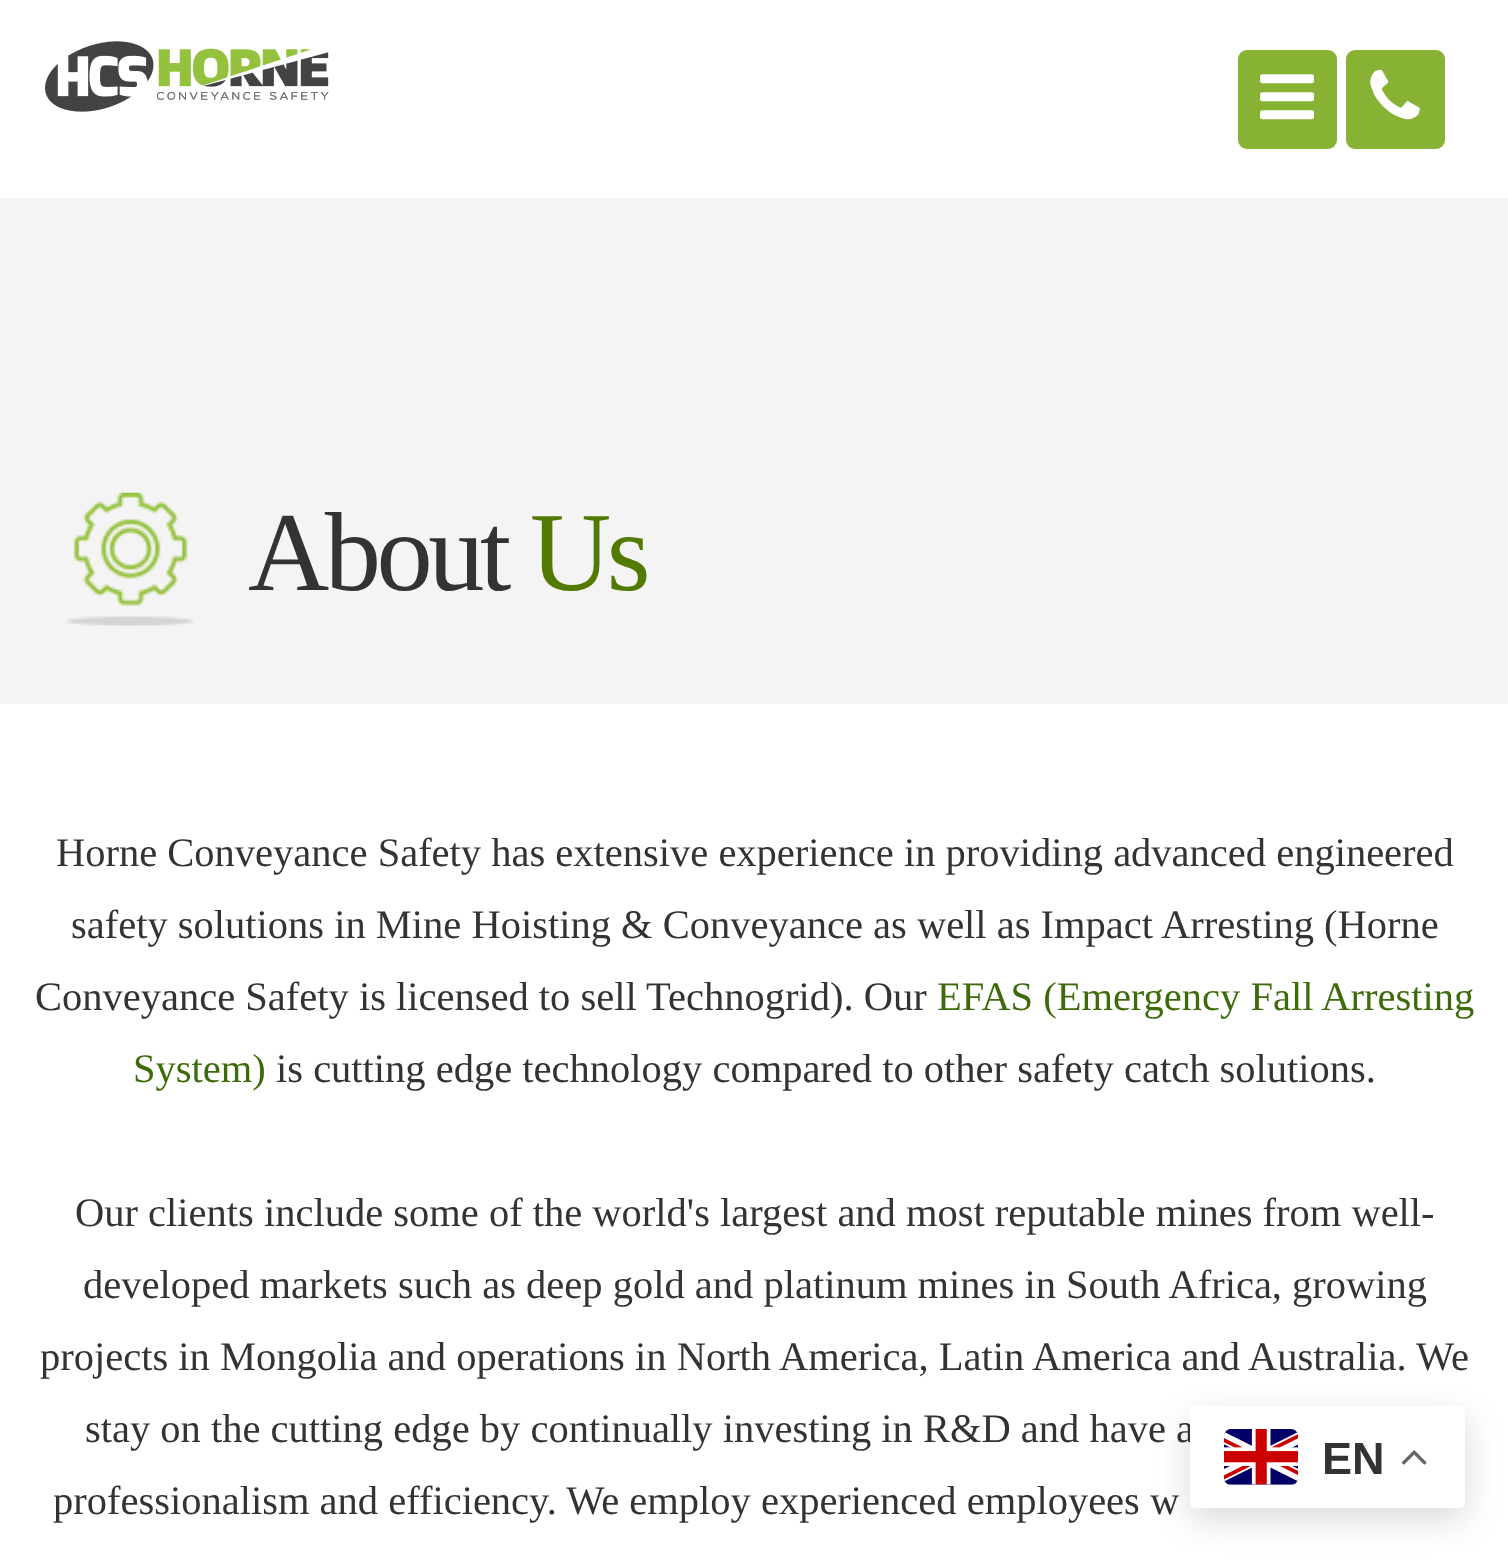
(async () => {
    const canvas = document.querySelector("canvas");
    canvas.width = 1508;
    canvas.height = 1566;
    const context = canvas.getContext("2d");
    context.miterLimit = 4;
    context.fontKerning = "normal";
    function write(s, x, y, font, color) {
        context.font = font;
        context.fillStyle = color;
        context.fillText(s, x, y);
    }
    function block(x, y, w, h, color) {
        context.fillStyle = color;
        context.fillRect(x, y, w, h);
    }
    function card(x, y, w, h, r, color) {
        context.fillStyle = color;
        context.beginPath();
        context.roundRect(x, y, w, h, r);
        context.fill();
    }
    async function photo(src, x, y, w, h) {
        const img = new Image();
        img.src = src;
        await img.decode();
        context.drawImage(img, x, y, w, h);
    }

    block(0, 0, 1508, 1566, "rgb(255, 255, 255)");
    await photo("media/1.png", 45, 41, 284, 71);
    card(1238, 50, 99, 99, 9, "rgb(135, 178, 52)");
    await photo("media/2.png", 1260, 74, 54, 46);
    card(1346, 50, 99, 99, 9, "rgb(135, 178, 52)");
    await photo("media/3.png", 1370, 69, 50, 51);
    block(0, 198, 1508, 506, "rgb(245, 244, 244)");
    await photo("media/4.png", 67, 492, 127, 134);
    context.letterSpacing = "-4.5px";
    write("About", 248, 590, "112.5px Liberation Serif", "rgb(51, 51, 51)");
    write("Us", 530, 590, "112.5px Liberation Serif", "rgb(82, 122, 0)");
    context.letterSpacing = "0px";
    write("Horne Conveyance Safety has extensive experience in providing advanced engineered", 56, 866, "40.5px Liberation Serif", "rgb(51, 51, 51)");
    write("safety solutions in Mine Hoisting & Conveyance as well as Impact Arresting (Horne", 71, 938, "40.5px Liberation Serif", "rgb(51, 51, 51)");
    write("Conveyance Safety is licensed to sell Technogrid). Our", 35, 1010, "40.5px Liberation Serif", "rgb(51, 51, 51)");
    write("EFAS (Emergency Fall Arresting", 937, 1010, "40.5px Liberation Serif", "rgb(62, 107, 10)");
    write("System)", 133, 1082, "40.5px Liberation Serif", "rgb(62, 107, 10)");
    write("is cutting edge technology compared to other safety catch solutions.", 276, 1082, "40.5px Liberation Serif", "rgb(51, 51, 51)");
    write("Our clients include some of the world's largest and most reputable mines from well-", 75, 1226, "40.5px Liberation Serif", "rgb(51, 51, 51)");
    write("developed markets such as deep gold and platinum mines in South Africa, growing", 83, 1298, "40.5px Liberation Serif", "rgb(51, 51, 51)");
    write("projects in Mongolia and operations in North America, Latin America and Australia. We", 40, 1370, "40.5px Liberation Serif", "rgb(51, 51, 51)");
    write("stay on the cutting edge by continually investing in R&D and have a", 85, 1442, "40.5px Liberation Serif", "rgb(51, 51, 51)");
    write("professionalism and efficiency. We employ experienced employees w", 53, 1514, "40.5px Liberation Serif", "rgb(51, 51, 51)");
    context.fillStyle = "rgba(0, 0, 0, 0.15)";
    context.filter = "blur(17px)";
    context.beginPath();
    context.roundRect(1190, 1418, 275, 101, 5);
    context.fill();
    context.filter = "none";
    card(1190, 1406, 275, 102, 5, "rgb(255, 255, 255)");
    await photo("media/5.png", 1224, 1429, 74, 56);
    write("EN", 1322, 1474, "bold 45px Liberation Sans", "rgb(51, 51, 51)");
    await photo("media/6.png", 1402, 1450, 25, 15);
})();
